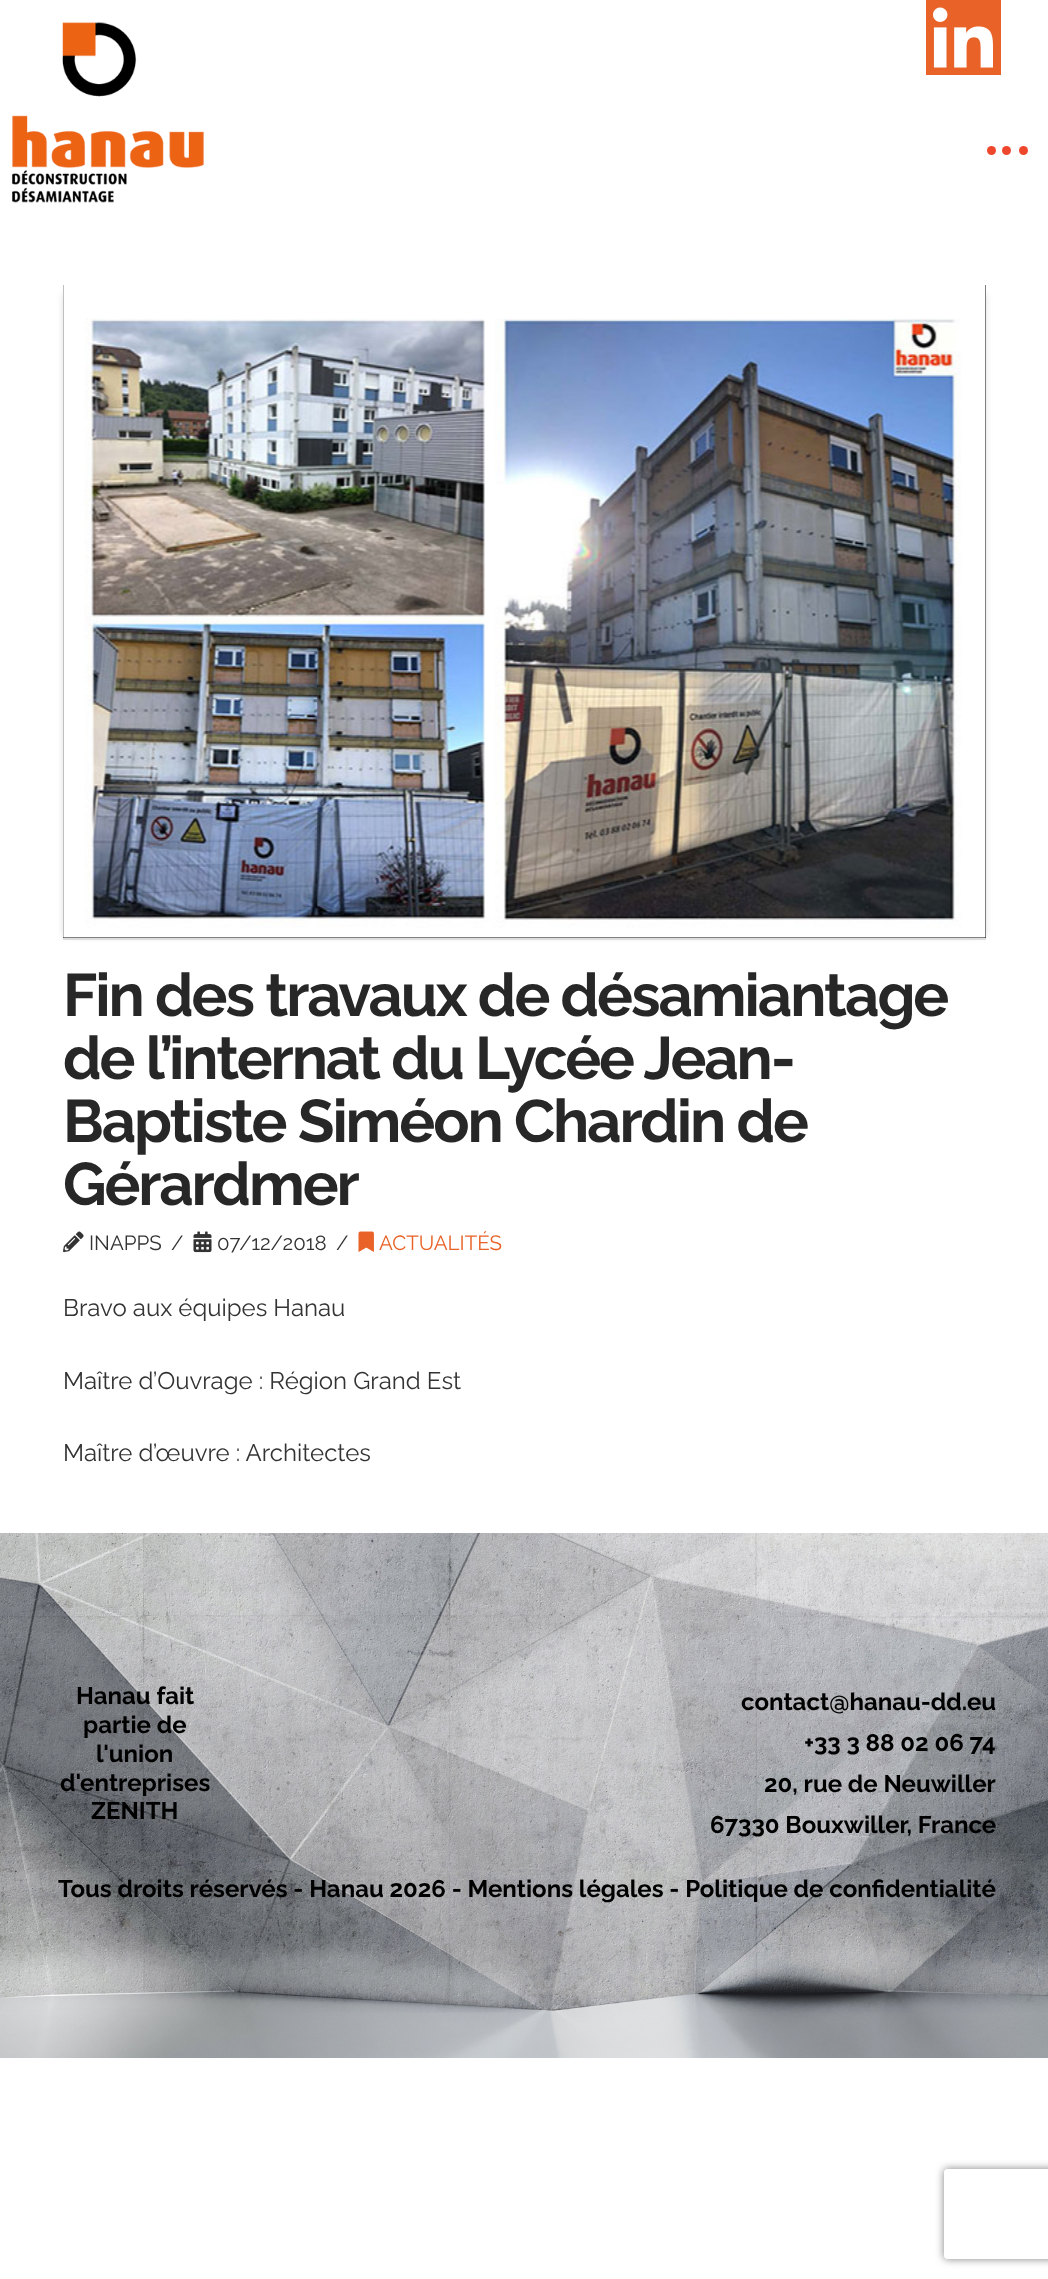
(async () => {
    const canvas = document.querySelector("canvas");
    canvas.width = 1048;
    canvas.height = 2279;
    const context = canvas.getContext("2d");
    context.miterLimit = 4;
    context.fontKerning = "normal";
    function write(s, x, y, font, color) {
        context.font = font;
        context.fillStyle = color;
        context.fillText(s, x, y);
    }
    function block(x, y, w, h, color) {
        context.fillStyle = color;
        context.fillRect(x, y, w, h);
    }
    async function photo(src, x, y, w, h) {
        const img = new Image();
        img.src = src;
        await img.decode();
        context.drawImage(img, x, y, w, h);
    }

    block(0, 0, 1048, 2279, "rgb(255, 255, 255)");
    await photo("media/1.png", 926, 0, 75, 75);
    await photo("media/2.png", 12, 22, 192, 181);
    context.fillStyle = "rgb(239, 71, 45)";
    context.beginPath();
    context.arc(991.5, 150.5, 4.5, 0, Math.PI * 2);
    context.fill();
    context.beginPath();
    context.arc(1006.5, 150.5, 4.5, 0, Math.PI * 2);
    context.fill();
    context.beginPath();
    context.arc(1023.5, 150.5, 4.5, 0, Math.PI * 2);
    context.fill();
    context.fillStyle = "rgba(0, 0, 0, 0.13)";
    context.filter = "blur(3px)";
    context.beginPath();
    context.rect(63, 294, 911, 642);
    context.fill();
    context.filter = "none";
    context.filter = "blur(3px)";
    context.beginPath();
    context.rect(75, 294, 911, 642);
    context.fill();
    context.filter = "none";
    block(63, 938, 923, 2, "rgb(221, 221, 221)");
    block(63, 285, 923, 653, "rgb(0, 0, 0)");
    await photo("media/3.png", 63, 285, 923, 653);
    context.letterSpacing = "-2.1px";
    write("Fin des travaux de désamiantage", 63, 1016, "bold 60px Raleway", "rgb(39, 39, 39)");
    write("de l’internat du Lycée Jean-", 63, 1079, "bold 60px Raleway", "rgb(39, 39, 39)");
    write("Baptiste Siméon Chardin de", 63, 1142, "bold 60px Raleway", "rgb(39, 39, 39)");
    write("Gérardmer", 63, 1205, "bold 60px Raleway", "rgb(39, 39, 39)");
    await photo("media/4.png", 63, 1231, 21, 22);
    context.letterSpacing = "0px";
    write("INAPPS", 89, 1250, "20.5px Raleway", "rgb(51, 51, 51)");
    write("/", 171, 1250, "20.5px Raleway", "rgb(51, 51, 51)");
    await photo("media/5.png", 193, 1231, 19, 22);
    write("07/12/2018", 217, 1250, "20.5px Raleway", "rgb(51, 51, 51)");
    write("/", 336, 1250, "20.5px Raleway", "rgb(51, 51, 51)");
    await photo("media/6.png", 358, 1231, 16, 21);
    write("ACTUALITÉS", 379, 1250, "20.5px Raleway", "rgb(233, 98, 39)");
    write("Bravo aux équipes Hanau", 63, 1316, "24px Raleway", "rgb(51, 51, 51)");
    write("Maître d’Ouvrage : Région Grand Est", 63, 1389, "24px Raleway", "rgb(51, 51, 51)");
    write("Maître d’œuvre : Architectes", 63, 1461, "24px Raleway", "rgb(51, 51, 51)");
    await photo("media/7.png", 0, 1533, 1048, 525);
    write("Hanau fait", 76, 1704, "bold 24px Raleway", "rgb(0, 0, 0)");
    write("partie de", 83, 1733, "bold 24px Raleway", "rgb(0, 0, 0)");
    write("l'union", 96, 1762, "bold 24px Raleway", "rgb(0, 0, 0)");
    write("d'entreprises", 60, 1791, "bold 24px Raleway", "rgb(0, 0, 0)");
    write("ZENITH", 91, 1819, "bold 24px Raleway", "rgb(0, 0, 0)");
    write("contact@hanau-dd.eu", 741, 1710, "bold 24px Raleway", "rgb(0, 0, 0)");
    write("+33 3 88 02 06 74", 804, 1751, "bold 24px Raleway", "rgb(0, 0, 0)");
    write("20, rue de Neuwiller", 764, 1792, "bold 24px Raleway", "rgb(0, 0, 0)");
    write("67330 Bouxwiller, France", 710, 1833, "bold 24px Raleway", "rgb(0, 0, 0)");
    write("Tous droits réservés - Hanau 2026 - Mentions légales - Politique de confidentialité", 58, 1897, "bold 24px Raleway", "rgb(0, 0, 0)");
    context.save();
    context.beginPath();
    context.moveTo(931, 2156);
    context.lineTo(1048, 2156);
    context.lineTo(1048, 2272);
    context.lineTo(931, 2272);
    context.closePath();
    context.moveTo(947, 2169);
    context.lineTo(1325, 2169);
    context.bezierCurveTo(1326.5, 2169, 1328, 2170.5, 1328, 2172);
    context.lineTo(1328, 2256);
    context.bezierCurveTo(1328, 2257.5, 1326.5, 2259, 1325, 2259);
    context.lineTo(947, 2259);
    context.bezierCurveTo(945.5, 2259, 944, 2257.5, 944, 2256);
    context.lineTo(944, 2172);
    context.bezierCurveTo(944, 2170.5, 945.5, 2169, 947, 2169);
    context.closePath();
    context.clip("evenodd");
    context.fillStyle = "rgb(128, 128, 128)";
    context.filter = "blur(4px)";
    context.beginPath();
    context.roundRect(944, 2169, 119, 90, 3);
    context.fill();
    context.filter = "none";
    context.restore();
})();
